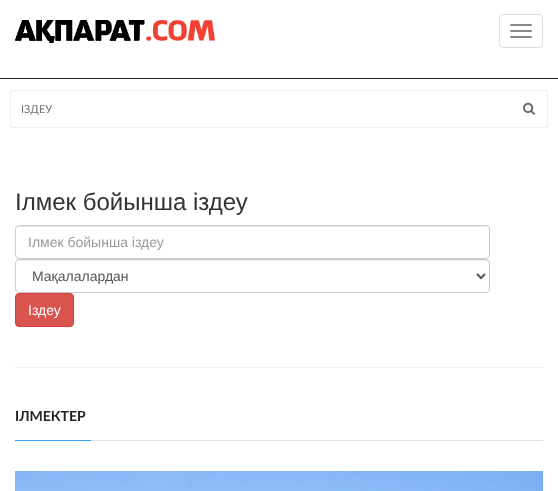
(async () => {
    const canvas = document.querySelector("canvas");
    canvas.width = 558;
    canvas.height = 491;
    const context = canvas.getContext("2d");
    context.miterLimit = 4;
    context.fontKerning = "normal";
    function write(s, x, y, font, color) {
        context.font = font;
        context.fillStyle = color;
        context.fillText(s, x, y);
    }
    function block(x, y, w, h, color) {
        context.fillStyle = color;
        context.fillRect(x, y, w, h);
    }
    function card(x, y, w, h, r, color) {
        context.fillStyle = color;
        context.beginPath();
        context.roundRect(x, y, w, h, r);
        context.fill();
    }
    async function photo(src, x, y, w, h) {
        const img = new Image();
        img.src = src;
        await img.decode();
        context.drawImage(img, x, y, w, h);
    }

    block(0, 0, 558, 491, "rgb(255, 255, 255)");
    await photo("media/1.png", 15, 20, 200, 23);
    context.beginPath();
    context.roundRect(499.5, 14.5, 43, 33, 3.5);
    context.strokeStyle = "rgb(221, 221, 221)";
    context.stroke();
    card(510, 24, 22, 2, 1, "rgb(136, 136, 136)");
    card(510, 30, 22, 2, 1, "rgb(136, 136, 136)");
    card(510, 36, 22, 2, 1, "rgb(136, 136, 136)");
    block(0, 78, 558, 1, "rgb(32, 32, 32)");
    context.beginPath();
    context.roundRect(10.5, 90.5, 537, 37, 1.5);
    context.strokeStyle = "rgb(238, 238, 238)";
    context.stroke();
    write("ІЗДЕУ", 21, 113, "11px Lato", "rgb(117, 117, 117)");
    await photo("media/2.png", 523, 102, 12, 13);
    write("Ілмек бойынша іздеу", 15, 210, "24px Liberation Sans", "rgb(51, 51, 51)");
    context.fillStyle = "rgb(236, 236, 236)";
    context.beginPath();
    context.moveTo(19, 227);
    context.lineTo(486, 227);
    context.bezierCurveTo(488, 227, 489, 228, 489, 230);
    context.bezierCurveTo(489, 228, 489, 227, 487, 226);
    context.lineTo(18, 226);
    context.lineTo(16, 228);
    context.lineTo(16, 230);
    context.bezierCurveTo(16, 228, 17, 227, 19, 227);
    context.closePath();
    context.fill();
    context.beginPath();
    context.roundRect(15.5, 225.5, 474, 33, 3.5);
    context.strokeStyle = "rgb(204, 204, 204)";
    context.stroke();
    write("Ілмек бойынша іздеу", 28, 247, "14px Liberation Sans", "rgb(153, 153, 153)");
    context.fillStyle = "rgb(236, 236, 236)";
    context.beginPath();
    context.moveTo(19, 261);
    context.lineTo(486, 261);
    context.bezierCurveTo(488, 261, 489, 262, 489, 264);
    context.bezierCurveTo(489, 262, 489, 261, 487, 260);
    context.lineTo(18, 260);
    context.lineTo(16, 262);
    context.lineTo(16, 264);
    context.bezierCurveTo(16, 262, 17, 261, 19, 261);
    context.closePath();
    context.fill();
    context.beginPath();
    context.roundRect(15.5, 259.5, 474, 33, 3.5);
    context.stroke();
    context.beginPath();
    context.moveTo(477, 274);
    context.lineTo(481, 278);
    context.lineTo(485, 274);
    context.strokeStyle = "rgb(85, 85, 85)";
    context.lineWidth = 2;
    context.stroke();
    write("Мақалалардан", 32, 281, "14px Liberation Sans", "rgb(85, 85, 85)");
    context.fillStyle = "rgb(217, 83, 79)";
    context.beginPath();
    context.roundRect(15.5, 293.5, 58, 33, 3.5);
    context.fill();
    context.strokeStyle = "rgb(212, 63, 58)";
    context.lineWidth = 1;
    context.stroke();
    write("Іздеу", 28, 315, "14px Liberation Sans", "rgb(255, 255, 255)");
    block(15, 367, 528, 1, "rgb(238, 238, 238)");
    block(91, 440, 452, 1, "rgb(225, 225, 225)");
    block(15, 440, 76, 1, "rgb(51, 163, 241)");
    write("ІЛМЕКТЕР", 15, 421, "bold 14px Lato", "rgb(34, 34, 34)");
    await photo("media/3.png", 15, 471, 528, 20);
})();
